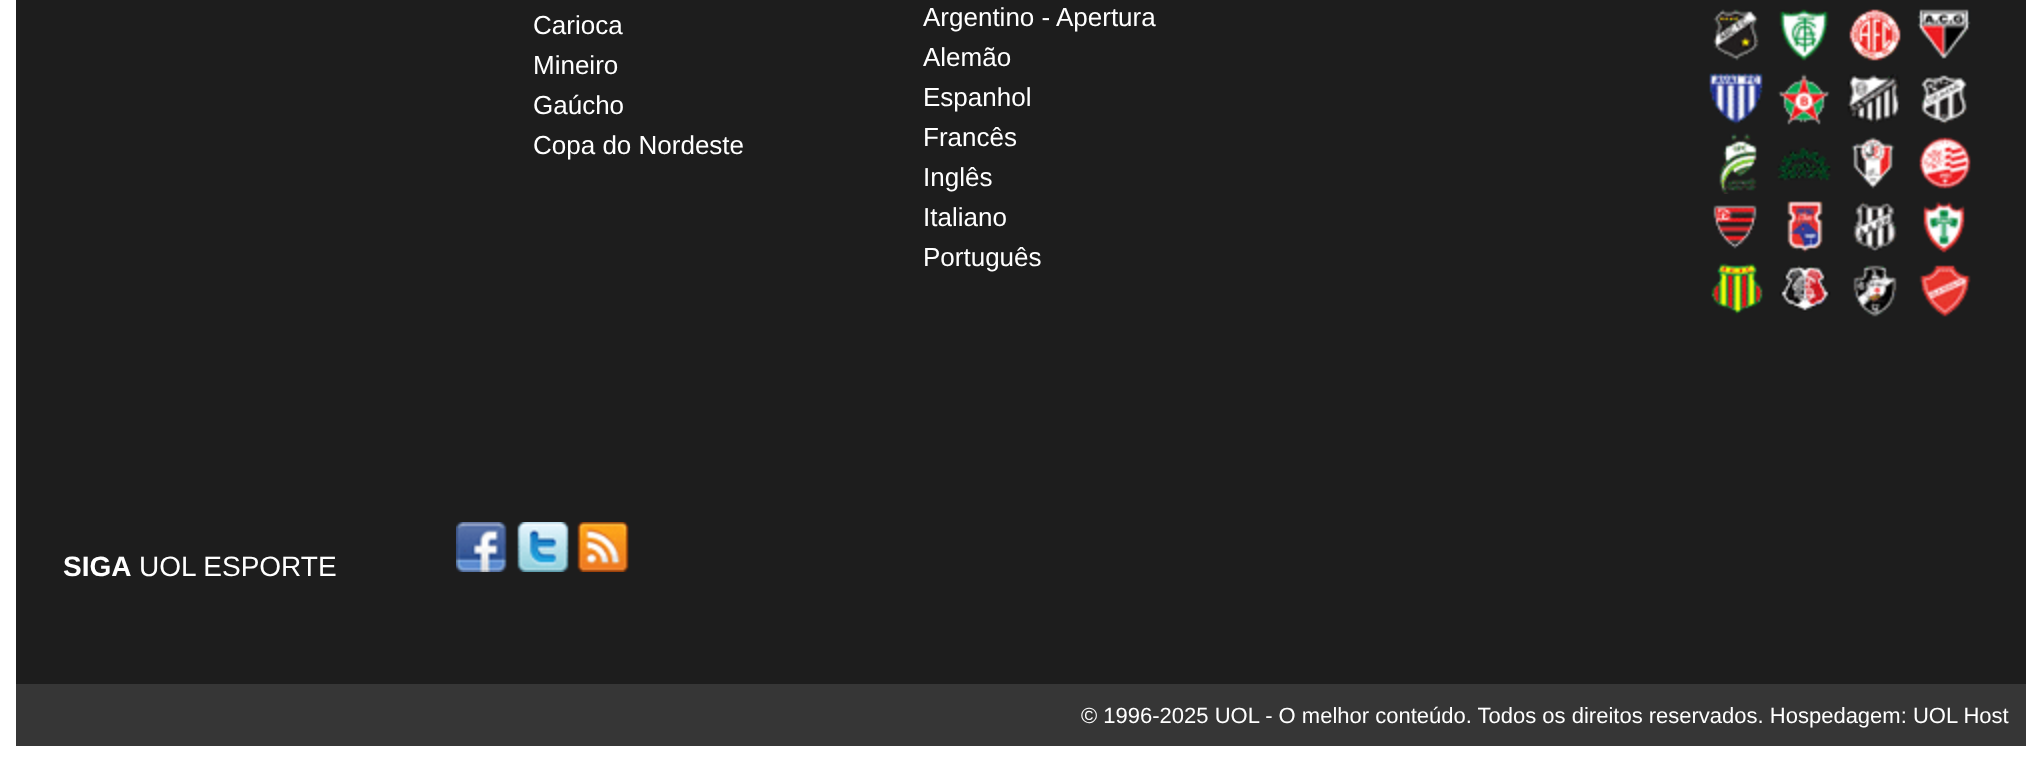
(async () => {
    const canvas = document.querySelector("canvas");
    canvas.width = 2041;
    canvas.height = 761;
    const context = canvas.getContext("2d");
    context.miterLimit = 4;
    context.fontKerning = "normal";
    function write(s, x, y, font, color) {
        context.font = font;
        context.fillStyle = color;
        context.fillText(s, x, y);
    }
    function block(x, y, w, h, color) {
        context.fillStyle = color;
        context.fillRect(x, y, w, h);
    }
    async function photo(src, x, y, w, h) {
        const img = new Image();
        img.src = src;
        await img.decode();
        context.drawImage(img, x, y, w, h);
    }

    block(0, 0, 2041, 761, "rgb(255, 255, 255)");
    block(16, 0, 2010, 684, "rgb(29, 29, 29)");
    write("Carioca", 533, 34, "26px Liberation Sans", "rgb(255, 255, 255)");
    write("Mineiro", 533, 74, "26px Liberation Sans", "rgb(255, 255, 255)");
    write("Gaúcho", 533, 114, "26px Liberation Sans", "rgb(255, 255, 255)");
    write("Copa do Nordeste", 533, 154, "26px Liberation Sans", "rgb(255, 255, 255)");
    write("Argentino - Apertura", 923, 26, "26px Liberation Sans", "rgb(255, 255, 255)");
    write("Alemão", 923, 66, "26px Liberation Sans", "rgb(255, 255, 255)");
    write("Espanhol", 923, 106, "26px Liberation Sans", "rgb(255, 255, 255)");
    write("Francês", 923, 146, "26px Liberation Sans", "rgb(255, 255, 255)");
    write("Inglês", 923, 186, "26px Liberation Sans", "rgb(255, 255, 255)");
    write("Italiano", 923, 226, "26px Liberation Sans", "rgb(255, 255, 255)");
    write("Português", 923, 266, "26px Liberation Sans", "rgb(255, 255, 255)");
    await photo("media/1.png", 1713, 9, 46, 52);
    await photo("media/2.png", 1779, 9, 50, 52);
    await photo("media/3.png", 1849, 9, 52, 52);
    await photo("media/4.png", 1917, 9, 54, 51);
    await photo("media/5.png", 1709, 73, 54, 52);
    await photo("media/6.png", 1777, 73, 53, 52);
    await photo("media/7.png", 1847, 74, 53, 50);
    await photo("media/8.png", 1920, 75, 48, 50);
    await photo("media/9.png", 1719, 133, 38, 61);
    await photo("media/10.png", 1777, 147, 54, 34);
    await photo("media/11.png", 1851, 137, 44, 52);
    await photo("media/12.png", 1919, 137, 52, 52);
    await photo("media/13.png", 1713, 205, 44, 44);
    await photo("media/14.png", 1787, 201, 36, 52);
    await photo("media/15.png", 1852, 201, 46, 51);
    await photo("media/16.png", 1923, 201, 42, 52);
    await photo("media/17.png", 1711, 263, 52, 52);
    await photo("media/18.png", 1779, 265, 52, 47);
    await photo("media/19.png", 1853, 265, 44, 52);
    await photo("media/20.png", 1919, 265, 52, 52);
    write("SIGA", 63, 576, "bold 28px Liberation Sans", "rgb(255, 255, 255)");
    write("UOL ESPORTE", 139, 576, "28px Liberation Sans", "rgb(255, 255, 255)");
    await photo("media/21.png", 456, 522, 51, 50);
    await photo("media/22.png", 517, 522, 52, 50);
    await photo("media/23.png", 577, 522, 52, 50);
    block(16, 684, 2010, 62, "rgb(54, 54, 54)");
    write("© 1996-2025 UOL - O melhor conteúdo. Todos os direitos reservados. Hospedagem: UOL Host", 1081, 723, "22px Liberation Sans", "rgb(255, 255, 255)");
})();
